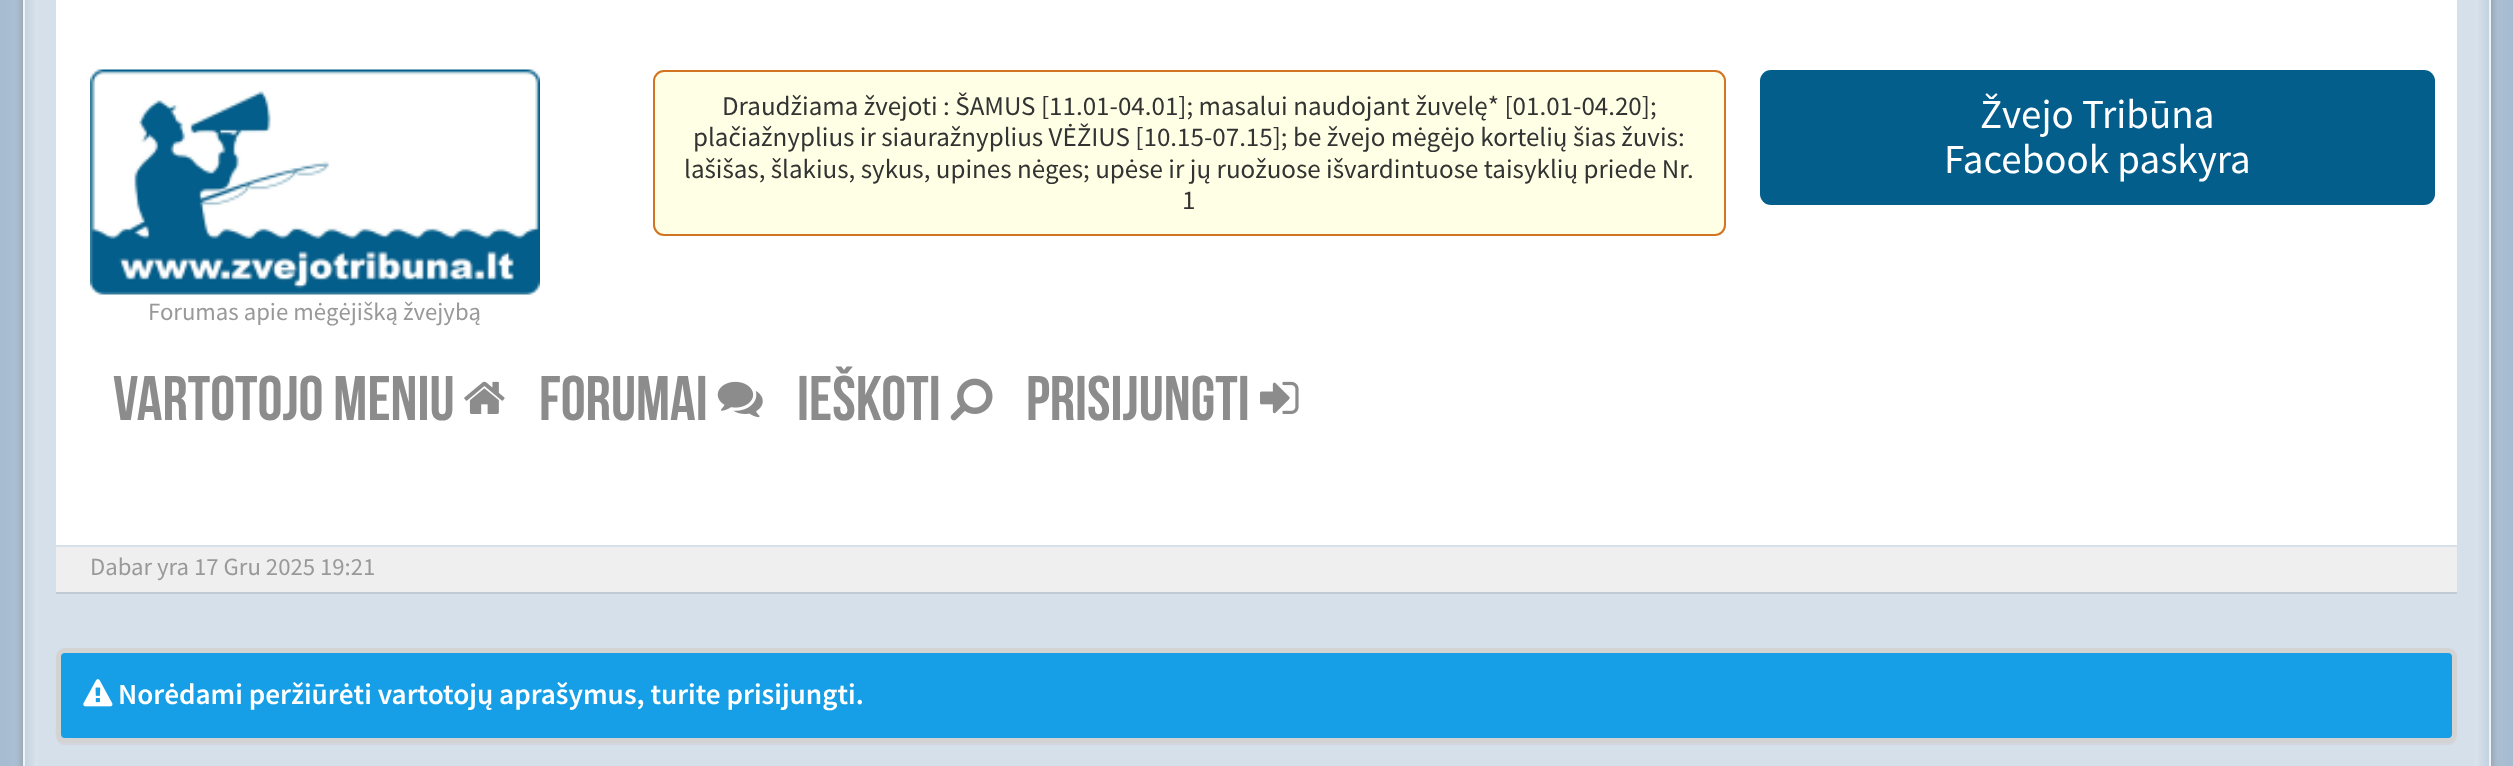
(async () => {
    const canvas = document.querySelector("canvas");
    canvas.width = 2513;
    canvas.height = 766;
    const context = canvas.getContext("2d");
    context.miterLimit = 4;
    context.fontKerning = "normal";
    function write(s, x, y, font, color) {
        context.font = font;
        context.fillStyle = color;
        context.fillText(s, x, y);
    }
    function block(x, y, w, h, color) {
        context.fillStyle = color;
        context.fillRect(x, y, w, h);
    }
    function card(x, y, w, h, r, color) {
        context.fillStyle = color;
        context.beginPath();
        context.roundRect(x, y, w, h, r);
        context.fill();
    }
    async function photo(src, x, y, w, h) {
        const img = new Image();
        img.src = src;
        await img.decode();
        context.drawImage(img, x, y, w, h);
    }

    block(0, 0, 2513, 766, "rgb(166, 188, 209)");
    context.save();
    context.beginPath();
    context.moveTo(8, 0);
    context.lineTo(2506, 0);
    context.lineTo(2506, 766);
    context.lineTo(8, 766);
    context.closePath();
    context.moveTo(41, -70);
    context.lineTo(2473, -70);
    context.bezierCurveTo(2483, -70, 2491, -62, 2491, -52);
    context.lineTo(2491, 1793);
    context.bezierCurveTo(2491, 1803, 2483, 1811, 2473, 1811);
    context.lineTo(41, 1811);
    context.bezierCurveTo(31, 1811, 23, 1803, 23, 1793);
    context.lineTo(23, -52);
    context.bezierCurveTo(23, -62, 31, -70, 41, -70);
    context.closePath();
    context.clip("evenodd");
    context.fillStyle = "rgba(50, 50, 50, 0.5)";
    context.filter = "blur(4.5px)";
    context.beginPath();
    context.roundRect(23, -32, 2468, 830, 18);
    context.fill();
    context.filter = "none";
    context.restore();
    block(23, 0, 2468, 766, "rgba(255, 255, 255, 0.2)");
    context.strokeStyle = "rgba(255, 255, 255, 0.75)";
    context.lineWidth = 2;
    context.strokeRect(24, -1, 2466, 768);
    context.fillStyle = "rgb(255, 255, 255)";
    context.filter = "blur(16px)";
    context.beginPath();
    context.roundRect(38, -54, 2437, 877, 9);
    context.fill();
    context.filter = "none";
    block(38, 0, 2437, 766, "rgb(214, 224, 234)");
    block(56, 0, 2401, 545, "rgb(255, 255, 255)");
    context.fillStyle = "rgb(255, 255, 229)";
    context.beginPath();
    context.roundRect(654, 71, 1071, 164, 10);
    context.fill();
    context.strokeStyle = "rgb(210, 116, 32)";
    context.stroke();
    write("Draudžiama žvejoti : ŠAMUS [11.01-04.01]; masalui naudojant žuvelę* [01.01-04.20];", 722, 115, "27px Source Sans Pro", "rgb(51, 51, 51)");
    write("plačiažnyplius ir siauražnyplius VĖŽIUS [10.15-07.15]; be žvejo mėgėjo kortelių šias žuvis:", 693, 146, "27px Source Sans Pro", "rgb(51, 51, 51)");
    write("lašišas, šlakius, sykus, upines nėges; upėse ir jų ruožuose išvardintuose taisyklių priede Nr.", 684, 178, "27px Source Sans Pro", "rgb(51, 51, 51)");
    write("1", 1182, 209, "27px Source Sans Pro", "rgb(51, 51, 51)");
    card(1760, 70, 675, 135, 11, "rgb(3, 94, 139)");
    write("Žvejo Tribūna", 1980, 128, "41px Source Sans Pro", "rgb(255, 255, 255)");
    write("Facebook paskyra", 1944, 173, "41px Source Sans Pro", "rgb(255, 255, 255)");
    await photo("media/1.png", 90, 69, 450, 226);
    write("Forumas apie mėgėjišką žvejybą", 148, 320, "24.75px Source Sans Pro", "rgb(153, 153, 153)");
    write("VARTOTOJO MENIU", 113, 420, "63px Bebas Neue", "rgb(140, 140, 140)");
    await photo("media/2.png", 464, 381, 41, 33);
    write("FORUMAI", 539, 420, "63px Bebas Neue", "rgb(140, 140, 140)");
    await photo("media/3.png", 717, 381, 46, 37);
    write("IEŠKOTI", 797, 420, "63px Bebas Neue", "rgb(140, 140, 140)");
    await photo("media/4.png", 950, 378, 43, 43);
    write("PRISIJUNGTI", 1026, 420, "63px Bebas Neue", "rgb(140, 140, 140)");
    await photo("media/5.png", 1260, 381, 39, 33);
    context.fillStyle = "rgb(193, 202, 211)";
    context.beginPath();
    context.moveTo(56, 549);
    context.lineTo(56, 594);
    context.lineTo(2457, 594);
    context.lineTo(2457, 592);
    context.lineTo(56, 592);
    context.closePath();
    context.fill();
    block(56, 547, 2401, 45, "rgb(239, 239, 239)");
    write("Dabar yra 17 Gru 2025 19:21", 90, 575, "24.75px Source Sans Pro", "rgb(153, 153, 153)");
    context.fillStyle = "rgb(212, 213, 223)";
    context.beginPath();
    context.moveTo(56, 657);
    context.lineTo(56, 723);
    context.bezierCurveTo(56, 730, 53, 745, 65, 745);
    context.lineTo(2448, 745);
    context.bezierCurveTo(2455, 745, 2457, 739, 2457, 734);
    context.bezierCurveTo(2457, 738, 2453, 742, 2448, 742);
    context.lineTo(65, 742);
    context.bezierCurveTo(60, 742, 56, 738, 56, 734);
    context.closePath();
    context.fill();
    context.fillStyle = "rgb(22, 159, 230)";
    context.beginPath();
    context.roundRect(58.5, 650.5, 2396, 90, 6.5);
    context.fill();
    context.strokeStyle = "rgb(211, 211, 211)";
    context.lineWidth = 5;
    context.stroke();
    await photo("media/6.png", 83, 679, 30, 28);
    write("Norėdami peržiūrėti vartotojų aprašymus, turite prisijungti.", 118, 704, "600 29.25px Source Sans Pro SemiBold", "rgb(255, 255, 255)");
})();
